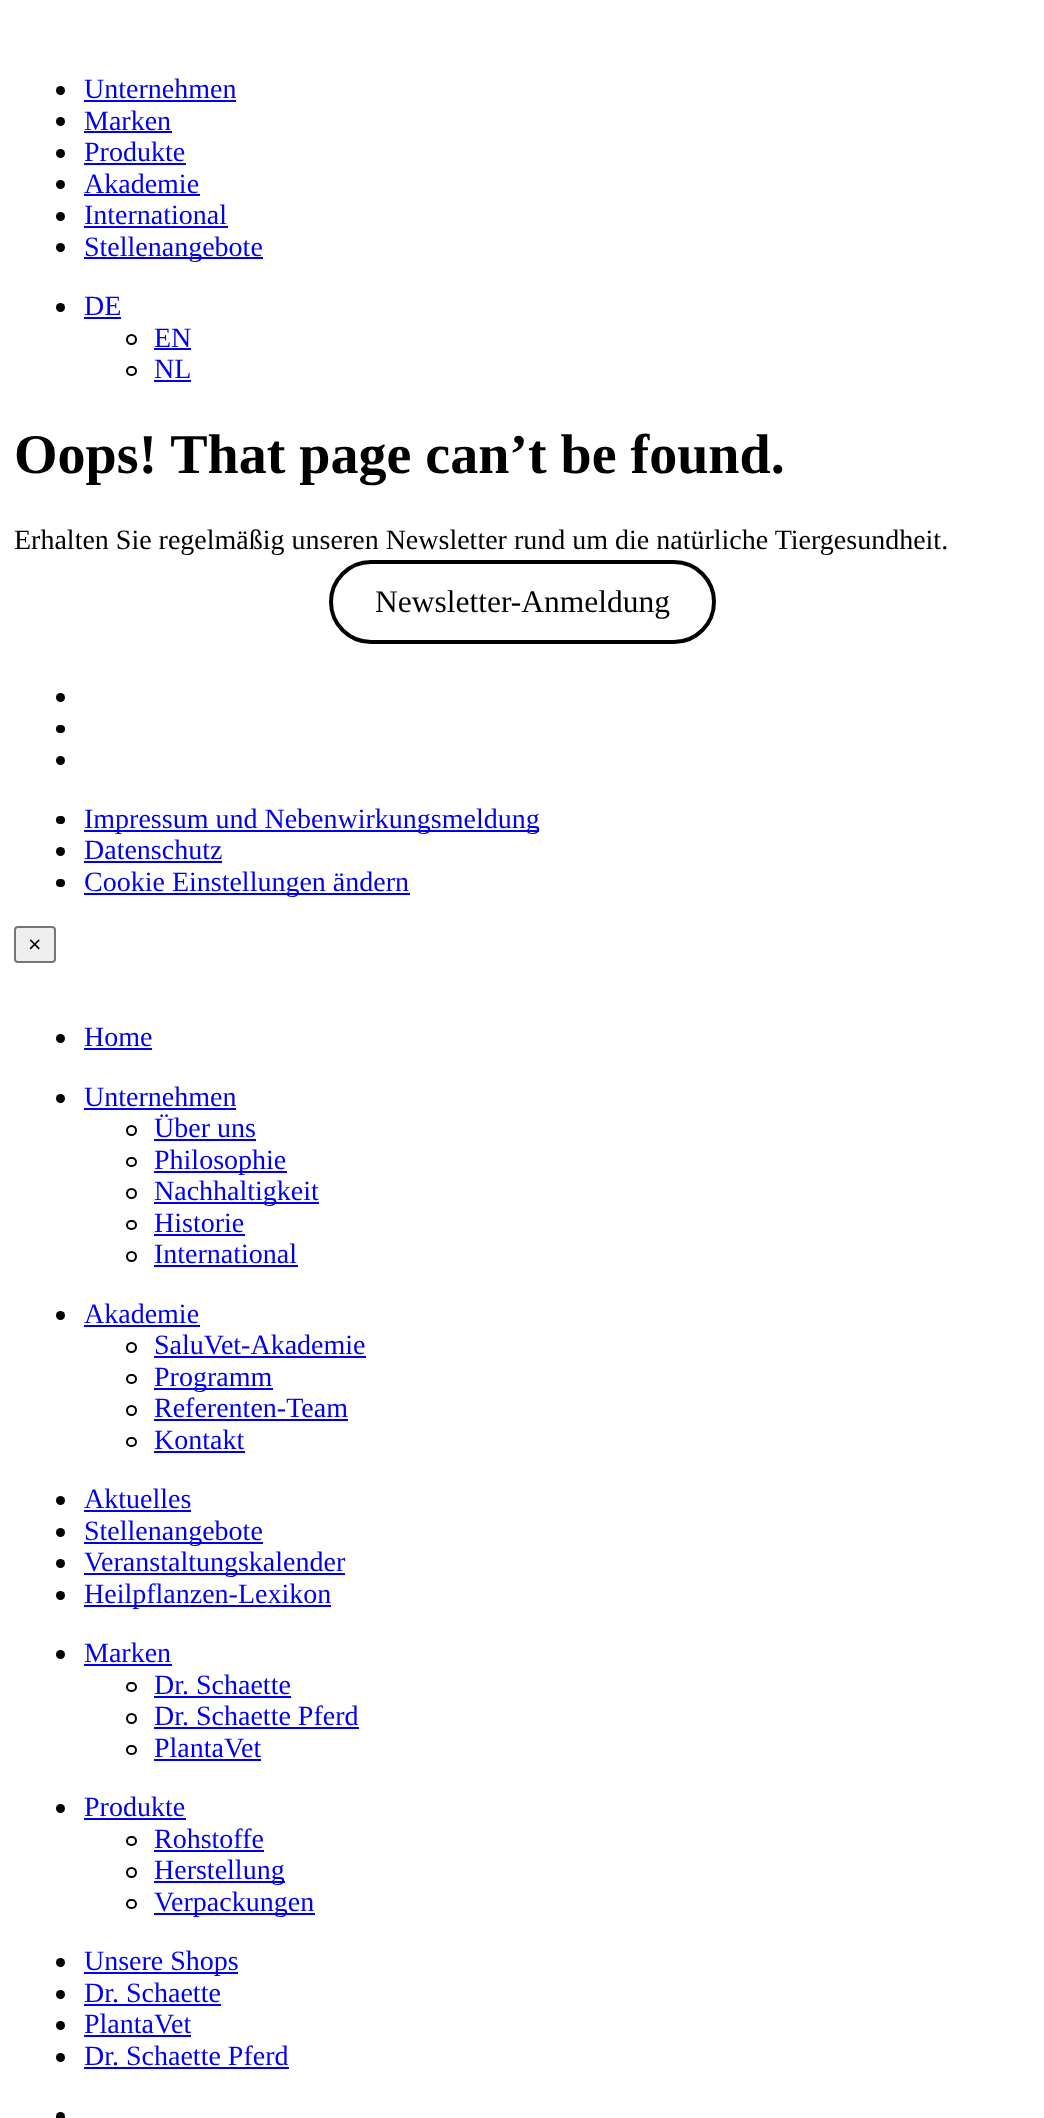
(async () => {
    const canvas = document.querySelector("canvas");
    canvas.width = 1044;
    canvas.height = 2118;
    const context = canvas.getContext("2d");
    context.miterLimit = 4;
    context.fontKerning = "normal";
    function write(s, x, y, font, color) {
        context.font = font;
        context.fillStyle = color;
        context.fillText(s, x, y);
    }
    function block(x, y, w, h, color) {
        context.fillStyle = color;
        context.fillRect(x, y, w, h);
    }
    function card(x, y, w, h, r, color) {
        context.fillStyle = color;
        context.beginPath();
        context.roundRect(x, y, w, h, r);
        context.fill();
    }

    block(0, 0, 1044, 2118, "rgb(255, 255, 255)");
    context.fillStyle = "rgb(0, 0, 0)";
    context.beginPath();
    context.arc(60.5, 90.5, 4.5, 0, Math.PI * 2);
    context.fill();
    write("Unternehmen", 84, 98, "28px Liberation Serif", "rgb(0, 0, 238)");
    block(84, 100, 152, 2, "rgb(0, 0, 238)");
    context.fillStyle = "rgb(0, 0, 0)";
    context.beginPath();
    context.arc(60.5, 121.5, 4.5, 0, Math.PI * 2);
    context.fill();
    write("Marken", 84, 130, "28px Liberation Serif", "rgb(0, 0, 238)");
    block(84, 131, 88, 2, "rgb(0, 0, 238)");
    context.fillStyle = "rgb(0, 0, 0)";
    context.beginPath();
    context.arc(60.5, 153.5, 4.5, 0, Math.PI * 2);
    context.fill();
    write("Produkte", 84, 161, "28px Liberation Serif", "rgb(0, 0, 238)");
    block(84, 163, 102, 2, "rgb(0, 0, 238)");
    context.fillStyle = "rgb(0, 0, 0)";
    context.beginPath();
    context.arc(60.5, 184.5, 4.5, 0, Math.PI * 2);
    context.fill();
    write("Akademie", 84, 193, "28px Liberation Serif", "rgb(0, 0, 238)");
    block(84, 194, 116, 2, "rgb(0, 0, 238)");
    context.fillStyle = "rgb(0, 0, 0)";
    context.beginPath();
    context.arc(60.5, 216.5, 4.5, 0, Math.PI * 2);
    context.fill();
    write("International", 84, 224, "28px Liberation Serif", "rgb(0, 0, 238)");
    block(84, 226, 144, 2, "rgb(0, 0, 238)");
    context.fillStyle = "rgb(0, 0, 0)";
    context.beginPath();
    context.arc(60.5, 247.5, 4.5, 0, Math.PI * 2);
    context.fill();
    block(84, 257, 179, 2, "rgb(0, 0, 238)");
    write("Stellenangebote", 84, 256, "28px Liberation Serif", "rgb(0, 0, 238)");
    context.fillStyle = "rgb(0, 0, 0)";
    context.beginPath();
    context.arc(60.5, 307.5, 4.5, 0, Math.PI * 2);
    context.fill();
    write("DE", 84, 315, "28px Liberation Serif", "rgb(0, 0, 238)");
    block(84, 317, 37, 2, "rgb(0, 0, 238)");
    context.beginPath();
    context.arc(131.5, 339.5, 4.5, 0, Math.PI * 2);
    context.strokeStyle = "rgb(0, 0, 0)";
    context.lineWidth = 2;
    context.stroke();
    write("EN", 154, 347, "28px Liberation Serif", "rgb(0, 0, 238)");
    block(154, 348, 37, 2, "rgb(0, 0, 238)");
    context.beginPath();
    context.roundRect(127, 367, 9, 8, 4);
    context.stroke();
    write("NL", 154, 378, "28px Liberation Serif", "rgb(0, 0, 238)");
    block(154, 380, 37, 2, "rgb(0, 0, 238)");
    write("Oops! That page can’t be found.", 14, 473, "bold 56px Liberation Serif", "rgb(0, 0, 0)");
    write("Erhalten Sie regelmäßig unseren Newsletter rund um die natürliche Tiergesundheit.", 14, 549, "28px Liberation Serif", "rgb(0, 0, 0)");
    context.beginPath();
    context.roundRect(331, 562, 383, 80, 40);
    context.lineWidth = 4;
    context.stroke();
    write("Newsletter-Anmeldung", 375, 612, "31.5px Liberation Serif", "rgb(0, 0, 0)");
    context.beginPath();
    context.arc(60.5, 697.5, 4.5, 0, Math.PI * 2);
    context.fill();
    card(56, 725, 9, 8, 4, "rgb(0, 0, 0)");
    context.beginPath();
    context.arc(60.5, 760.5, 4.5, 0, Math.PI * 2);
    context.fill();
    card(56, 816, 9, 8, 4, "rgb(0, 0, 0)");
    block(84, 830, 455, 2, "rgb(0, 0, 238)");
    write("Impressum und Nebenwirkungsmeldung", 84, 828, "28px Liberation Serif", "rgb(0, 0, 238)");
    context.fillStyle = "rgb(0, 0, 0)";
    context.beginPath();
    context.arc(60.5, 851.5, 4.5, 0, Math.PI * 2);
    context.fill();
    write("Datenschutz", 84, 859, "28px Liberation Serif", "rgb(0, 0, 238)");
    block(84, 861, 138, 2, "rgb(0, 0, 238)");
    card(56, 879, 9, 8, 4, "rgb(0, 0, 0)");
    block(84, 893, 326, 2, "rgb(0, 0, 238)");
    write("Cookie Einstellungen ändern", 84, 891, "28px Liberation Serif", "rgb(0, 0, 238)");
    context.fillStyle = "rgb(239, 239, 239)";
    context.beginPath();
    context.roundRect(15, 927, 40, 35, 3);
    context.fill();
    context.strokeStyle = "rgb(118, 118, 118)";
    context.lineWidth = 2;
    context.stroke();
    write("×", 28, 952, "23px Liberation Sans", "rgb(0, 0, 0)");
    context.beginPath();
    context.arc(60.5, 1038.5, 4.5, 0, Math.PI * 2);
    context.fill();
    write("Home", 84, 1046, "28px Liberation Serif", "rgb(0, 0, 238)");
    block(84, 1048, 68, 2, "rgb(0, 0, 238)");
    context.fillStyle = "rgb(0, 0, 0)";
    context.beginPath();
    context.arc(60.5, 1098.5, 4.5, 0, Math.PI * 2);
    context.fill();
    write("Unternehmen", 84, 1106, "28px Liberation Serif", "rgb(0, 0, 238)");
    block(84, 1108, 152, 2, "rgb(0, 0, 238)");
    context.beginPath();
    context.arc(131.5, 1130.5, 4.5, 0, Math.PI * 2);
    context.strokeStyle = "rgb(0, 0, 0)";
    context.stroke();
    write("Über uns", 154, 1137, "28px Liberation Serif", "rgb(0, 0, 238)");
    block(154, 1139, 102, 2, "rgb(0, 0, 238)");
    context.beginPath();
    context.roundRect(127, 1158, 9, 8, 4);
    context.stroke();
    block(154, 1171, 133, 2, "rgb(0, 0, 238)");
    write("Philosophie", 154, 1169, "28px Liberation Serif", "rgb(0, 0, 238)");
    context.beginPath();
    context.arc(131.5, 1193.5, 4.5, 0, Math.PI * 2);
    context.stroke();
    block(154, 1202, 165, 2, "rgb(0, 0, 238)");
    write("Nachhaltigkeit", 154, 1200, "28px Liberation Serif", "rgb(0, 0, 238)");
    context.beginPath();
    context.roundRect(127, 1221, 9, 8, 4);
    context.stroke();
    write("Historie", 154, 1232, "28px Liberation Serif", "rgb(0, 0, 238)");
    block(154, 1234, 91, 2, "rgb(0, 0, 238)");
    context.beginPath();
    context.arc(131.5, 1256.5, 4.5, 0, Math.PI * 2);
    context.stroke();
    write("International", 154, 1263, "28px Liberation Serif", "rgb(0, 0, 238)");
    block(154, 1265, 144, 2, "rgb(0, 0, 238)");
    context.fillStyle = "rgb(0, 0, 0)";
    context.beginPath();
    context.arc(60.5, 1315.5, 4.5, 0, Math.PI * 2);
    context.fill();
    write("Akademie", 84, 1323, "28px Liberation Serif", "rgb(0, 0, 238)");
    block(84, 1325, 116, 2, "rgb(0, 0, 238)");
    context.beginPath();
    context.arc(131.5, 1347.5, 4.5, 0, Math.PI * 2);
    context.stroke();
    write("SaluVet-Akademie", 154, 1354, "28px Liberation Serif", "rgb(0, 0, 238)");
    block(154, 1356, 212, 2, "rgb(0, 0, 238)");
    context.beginPath();
    context.roundRect(127, 1375, 9, 8, 4);
    context.stroke();
    block(154, 1388, 119, 2, "rgb(0, 0, 238)");
    write("Programm", 154, 1386, "28px Liberation Serif", "rgb(0, 0, 238)");
    context.beginPath();
    context.arc(131.5, 1410.5, 4.5, 0, Math.PI * 2);
    context.stroke();
    write("Referenten-Team", 154, 1417, "28px Liberation Serif", "rgb(0, 0, 238)");
    block(154, 1419, 194, 2, "rgb(0, 0, 238)");
    context.beginPath();
    context.roundRect(127, 1438, 9, 8, 4);
    context.stroke();
    write("Kontakt", 154, 1449, "28px Liberation Serif", "rgb(0, 0, 238)");
    block(154, 1451, 91, 2, "rgb(0, 0, 238)");
    context.fillStyle = "rgb(0, 0, 0)";
    context.beginPath();
    context.arc(60.5, 1500.5, 4.5, 0, Math.PI * 2);
    context.fill();
    write("Aktuelles", 84, 1508, "28px Liberation Serif", "rgb(0, 0, 238)");
    block(84, 1510, 107, 2, "rgb(0, 0, 238)");
    context.fillStyle = "rgb(0, 0, 0)";
    context.beginPath();
    context.arc(60.5, 1532.5, 4.5, 0, Math.PI * 2);
    context.fill();
    block(84, 1542, 179, 2, "rgb(0, 0, 238)");
    write("Stellenangebote", 84, 1540, "28px Liberation Serif", "rgb(0, 0, 238)");
    context.fillStyle = "rgb(0, 0, 0)";
    context.beginPath();
    context.arc(60.5, 1563.5, 4.5, 0, Math.PI * 2);
    context.fill();
    block(84, 1573, 261, 2, "rgb(0, 0, 238)");
    write("Veranstaltungskalender", 84, 1571, "28px Liberation Serif", "rgb(0, 0, 238)");
    context.fillStyle = "rgb(0, 0, 0)";
    context.beginPath();
    context.arc(60.5, 1595.5, 4.5, 0, Math.PI * 2);
    context.fill();
    block(84, 1605, 247, 2, "rgb(0, 0, 238)");
    write("Heilpflanzen-Lexikon", 84, 1603, "28px Liberation Serif", "rgb(0, 0, 238)");
    context.fillStyle = "rgb(0, 0, 0)";
    context.beginPath();
    context.arc(60.5, 1654.5, 4.5, 0, Math.PI * 2);
    context.fill();
    write("Marken", 84, 1662, "28px Liberation Serif", "rgb(0, 0, 238)");
    block(84, 1664, 88, 2, "rgb(0, 0, 238)");
    context.beginPath();
    context.roundRect(127, 1683, 9, 8, 4);
    context.stroke();
    write("Dr. Schaette", 154, 1694, "28px Liberation Serif", "rgb(0, 0, 238)");
    block(154, 1696, 137, 2, "rgb(0, 0, 238)");
    context.beginPath();
    context.arc(131.5, 1718.5, 4.5, 0, Math.PI * 2);
    context.stroke();
    write("Dr. Schaette Pferd", 154, 1725, "28px Liberation Serif", "rgb(0, 0, 238)");
    block(154, 1727, 205, 2, "rgb(0, 0, 238)");
    context.beginPath();
    context.roundRect(127, 1746, 9, 8, 4);
    context.stroke();
    write("PlantaVet", 154, 1757, "28px Liberation Serif", "rgb(0, 0, 238)");
    block(154, 1759, 107, 2, "rgb(0, 0, 238)");
    context.fillStyle = "rgb(0, 0, 0)";
    context.beginPath();
    context.arc(60.5, 1808.5, 4.5, 0, Math.PI * 2);
    context.fill();
    write("Produkte", 84, 1816, "28px Liberation Serif", "rgb(0, 0, 238)");
    block(84, 1818, 102, 2, "rgb(0, 0, 238)");
    context.beginPath();
    context.roundRect(127, 1837, 9, 8, 4);
    context.stroke();
    write("Rohstoffe", 154, 1848, "28px Liberation Serif", "rgb(0, 0, 238)");
    block(154, 1850, 110, 2, "rgb(0, 0, 238)");
    context.beginPath();
    context.arc(131.5, 1872.5, 4.5, 0, Math.PI * 2);
    context.stroke();
    block(154, 1881, 131, 2, "rgb(0, 0, 238)");
    write("Herstellung", 154, 1879, "28px Liberation Serif", "rgb(0, 0, 238)");
    context.beginPath();
    context.roundRect(127, 1900, 9, 8, 4);
    context.stroke();
    block(154, 1913, 161, 2, "rgb(0, 0, 238)");
    write("Verpackungen", 154, 1911, "28px Liberation Serif", "rgb(0, 0, 238)");
    context.fillStyle = "rgb(0, 0, 0)";
    context.beginPath();
    context.arc(60.5, 1962.5, 4.5, 0, Math.PI * 2);
    context.fill();
    block(84, 1972, 154, 2, "rgb(0, 0, 238)");
    write("Unsere Shops", 84, 1970, "28px Liberation Serif", "rgb(0, 0, 238)");
    context.fillStyle = "rgb(0, 0, 0)";
    context.beginPath();
    context.arc(60.5, 1994.5, 4.5, 0, Math.PI * 2);
    context.fill();
    write("Dr. Schaette", 84, 2002, "28px Liberation Serif", "rgb(0, 0, 238)");
    block(84, 2004, 137, 2, "rgb(0, 0, 238)");
    context.fillStyle = "rgb(0, 0, 0)";
    context.beginPath();
    context.arc(60.5, 2025.5, 4.5, 0, Math.PI * 2);
    context.fill();
    write("PlantaVet", 84, 2033, "28px Liberation Serif", "rgb(0, 0, 238)");
    block(84, 2035, 107, 2, "rgb(0, 0, 238)");
    context.fillStyle = "rgb(0, 0, 0)";
    context.beginPath();
    context.arc(60.5, 2057.5, 4.5, 0, Math.PI * 2);
    context.fill();
    write("Dr. Schaette Pferd", 84, 2065, "28px Liberation Serif", "rgb(0, 0, 238)");
    block(84, 2067, 205, 2, "rgb(0, 0, 238)");
    context.fillStyle = "rgb(0, 0, 0)";
    context.beginPath();
    context.arc(60.5, 2116.5, 4.5, 0, Math.PI * 2);
    context.fill();
})();
